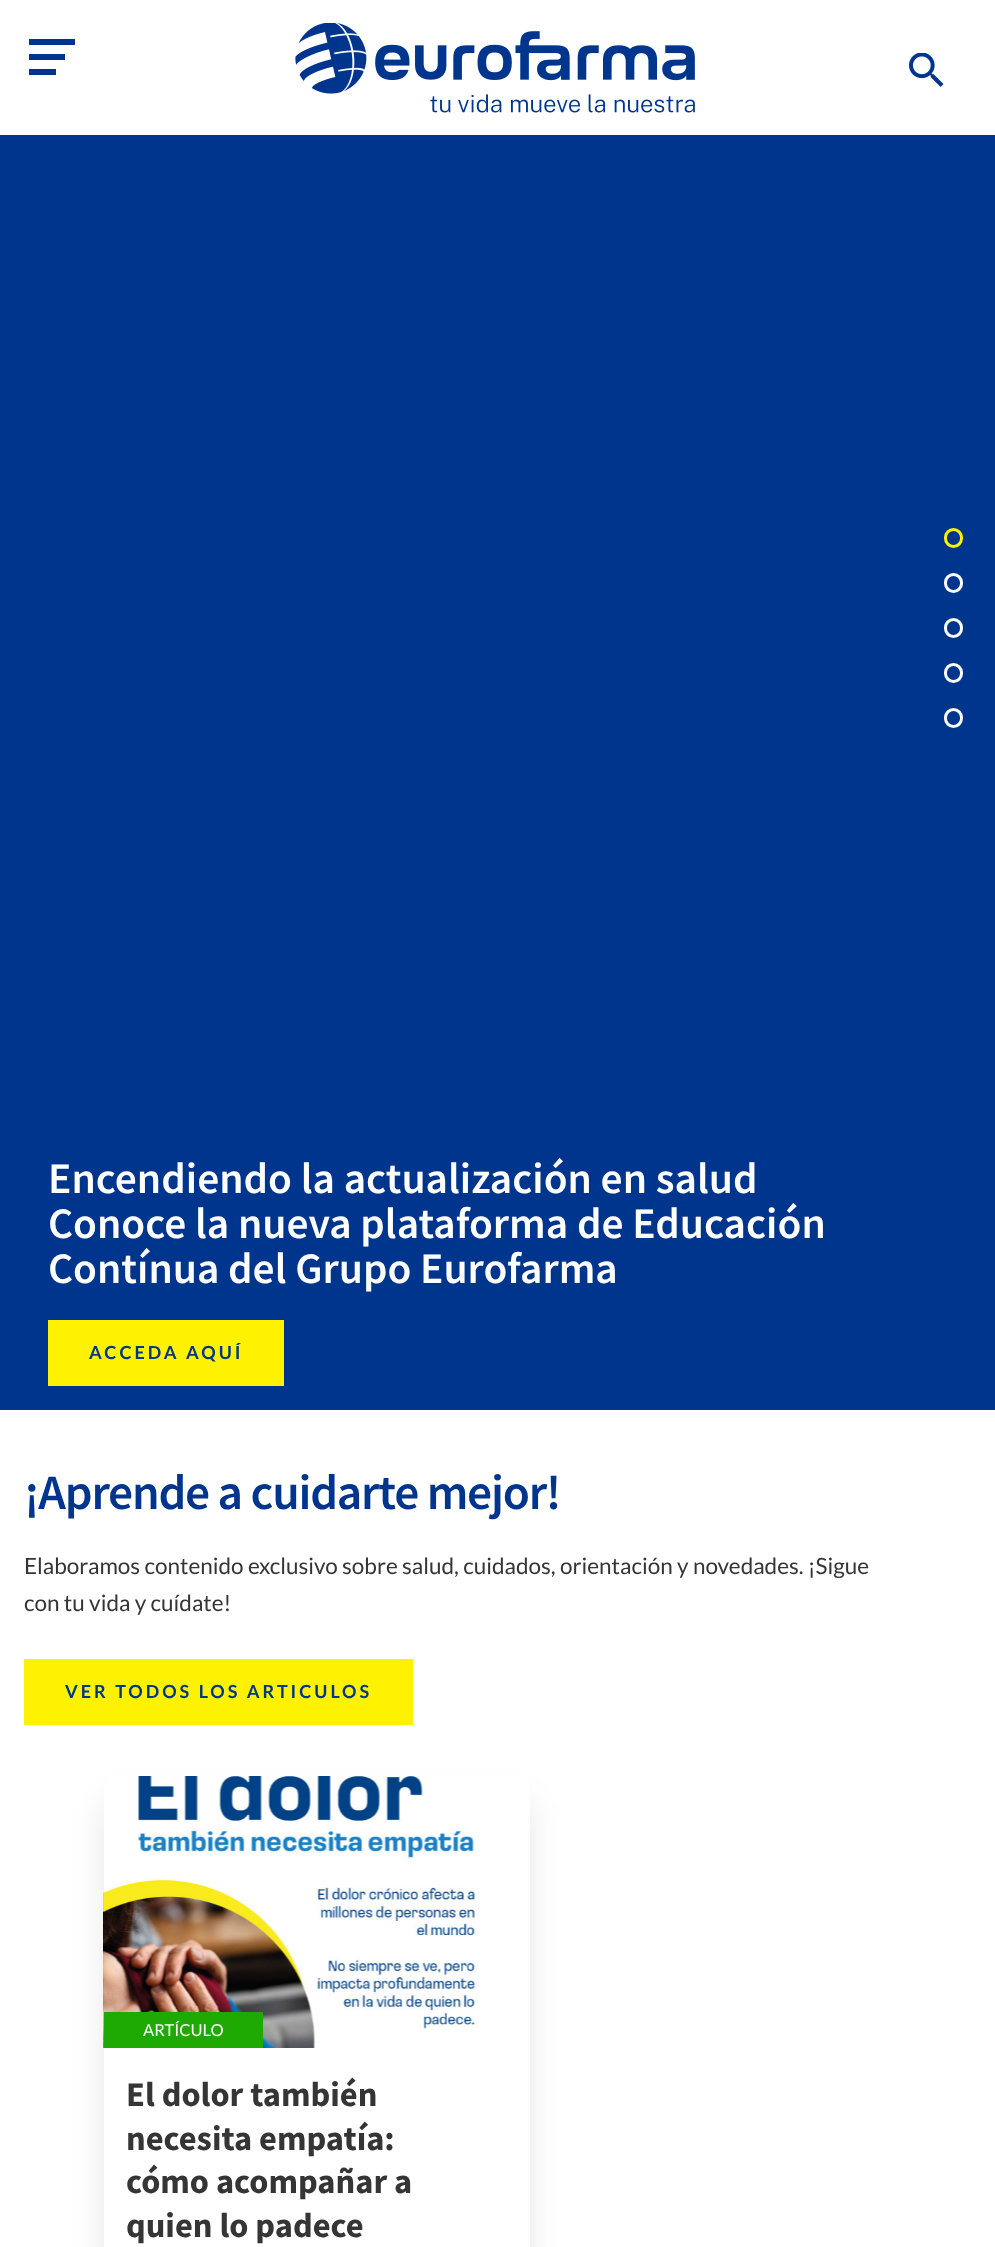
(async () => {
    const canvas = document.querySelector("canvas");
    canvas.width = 995;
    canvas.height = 2247;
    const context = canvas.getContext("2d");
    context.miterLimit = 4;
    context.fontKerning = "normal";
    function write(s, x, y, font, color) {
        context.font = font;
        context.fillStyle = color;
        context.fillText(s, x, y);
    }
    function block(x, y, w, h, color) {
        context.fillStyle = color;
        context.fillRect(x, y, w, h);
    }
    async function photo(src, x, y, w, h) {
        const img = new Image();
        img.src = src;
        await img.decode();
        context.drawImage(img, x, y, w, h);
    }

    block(0, 0, 995, 2247, "rgb(255, 255, 255)");
    block(29, 39, 46, 6, "rgb(0, 53, 142)");
    block(29, 54, 36, 6, "rgb(0, 53, 142)");
    block(29, 69, 27, 6, "rgb(0, 53, 142)");
    await photo("media/1.png", 295, 23, 400, 90);
    await photo("media/2.png", 909, 53, 35, 34);
    block(0, 135, 995, 1275, "rgb(0, 53, 142)");
    context.beginPath();
    context.roundRect(945.5, 529.5, 16, 17, 8);
    context.strokeStyle = "rgb(255, 242, 0)";
    context.lineWidth = 3;
    context.stroke();
    context.beginPath();
    context.roundRect(945.5, 574.5, 16, 17, 8);
    context.strokeStyle = "rgb(255, 255, 255)";
    context.stroke();
    context.beginPath();
    context.roundRect(945.5, 619.5, 16, 17, 8);
    context.stroke();
    context.beginPath();
    context.roundRect(945.5, 664.5, 16, 17, 8);
    context.stroke();
    context.beginPath();
    context.roundRect(945.5, 709.5, 16, 17, 8);
    context.stroke();
    write("Encendiendo la actualización en salud", 48, 1193, "600 43.5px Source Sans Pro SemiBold", "rgb(255, 255, 255)");
    write("Conoce la nueva plataforma de Educación", 48, 1238, "600 43.5px Source Sans Pro SemiBold", "rgb(255, 255, 255)");
    write("Contínua del Grupo Eurofarma", 48, 1283, "600 43.5px Source Sans Pro SemiBold", "rgb(255, 255, 255)");
    block(48, 1320, 236, 66, "rgb(255, 242, 0)");
    context.letterSpacing = "3px";
    write("ACCEDA AQUÍ", 89, 1359, "bold 18px Lato", "rgb(0, 53, 142)");
    context.letterSpacing = "-1.25px";
    write("¡Aprende a cuidarte mejor!", 24, 1509, "600 49.5px Source Sans Pro SemiBold", "rgb(0, 53, 142)");
    context.letterSpacing = "0px";
    write("Elaboramos contenido exclusivo sobre salud, cuidados, orientación y novedades. ¡Sigue", 24, 1574, "22.5px Lato", "rgb(53, 53, 53)");
    write("con tu vida y cuídate!", 24, 1611, "22.5px Lato", "rgb(53, 53, 53)");
    block(24, 1659, 389, 66, "rgb(255, 242, 0)");
    context.letterSpacing = "3px";
    write("VER TODOS LOS ARTICULOS", 65, 1698, "bold 18px Lato", "rgb(0, 53, 142)");
    await photo("media/3.png", 103, 1776, 376, 272);
    block(104, 2012, 159, 36, "rgb(31, 170, 3)");
    context.save();
    context.beginPath();
    context.moveTo(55, 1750);
    context.lineTo(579, 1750);
    context.lineTo(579, 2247);
    context.lineTo(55, 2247);
    context.closePath();
    context.moveTo(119, 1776);
    context.lineTo(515, 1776);
    context.bezierCurveTo(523.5, 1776, 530, 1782.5, 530, 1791);
    context.lineTo(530, 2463);
    context.bezierCurveTo(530, 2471.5, 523.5, 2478, 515, 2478);
    context.lineTo(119, 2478);
    context.bezierCurveTo(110.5, 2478, 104, 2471.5, 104, 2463);
    context.lineTo(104, 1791);
    context.bezierCurveTo(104, 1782.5, 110.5, 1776, 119, 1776);
    context.closePath();
    context.clip("evenodd");
    context.fillStyle = "rgba(0, 0, 0, 0.09)";
    context.filter = "blur(16px)";
    context.beginPath();
    context.roundRect(104, 1799, 426, 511, 15);
    context.fill();
    context.filter = "none";
    context.restore();
    context.letterSpacing = "0px";
    write("ARTÍCULO", 143, 2036, "16.5px Lato", "rgb(255, 255, 255)");
    write("El dolor también", 126, 2106, "bold 34.5px Source Sans Pro", "rgb(53, 53, 53)");
    write("necesita empatía:", 126, 2150, "bold 34.5px Source Sans Pro", "rgb(53, 53, 53)");
    write("cómo acompañar a", 126, 2193, "bold 34.5px Source Sans Pro", "rgb(53, 53, 53)");
    write("quien lo padece", 126, 2237, "bold 34.5px Source Sans Pro", "rgb(53, 53, 53)");
})();
